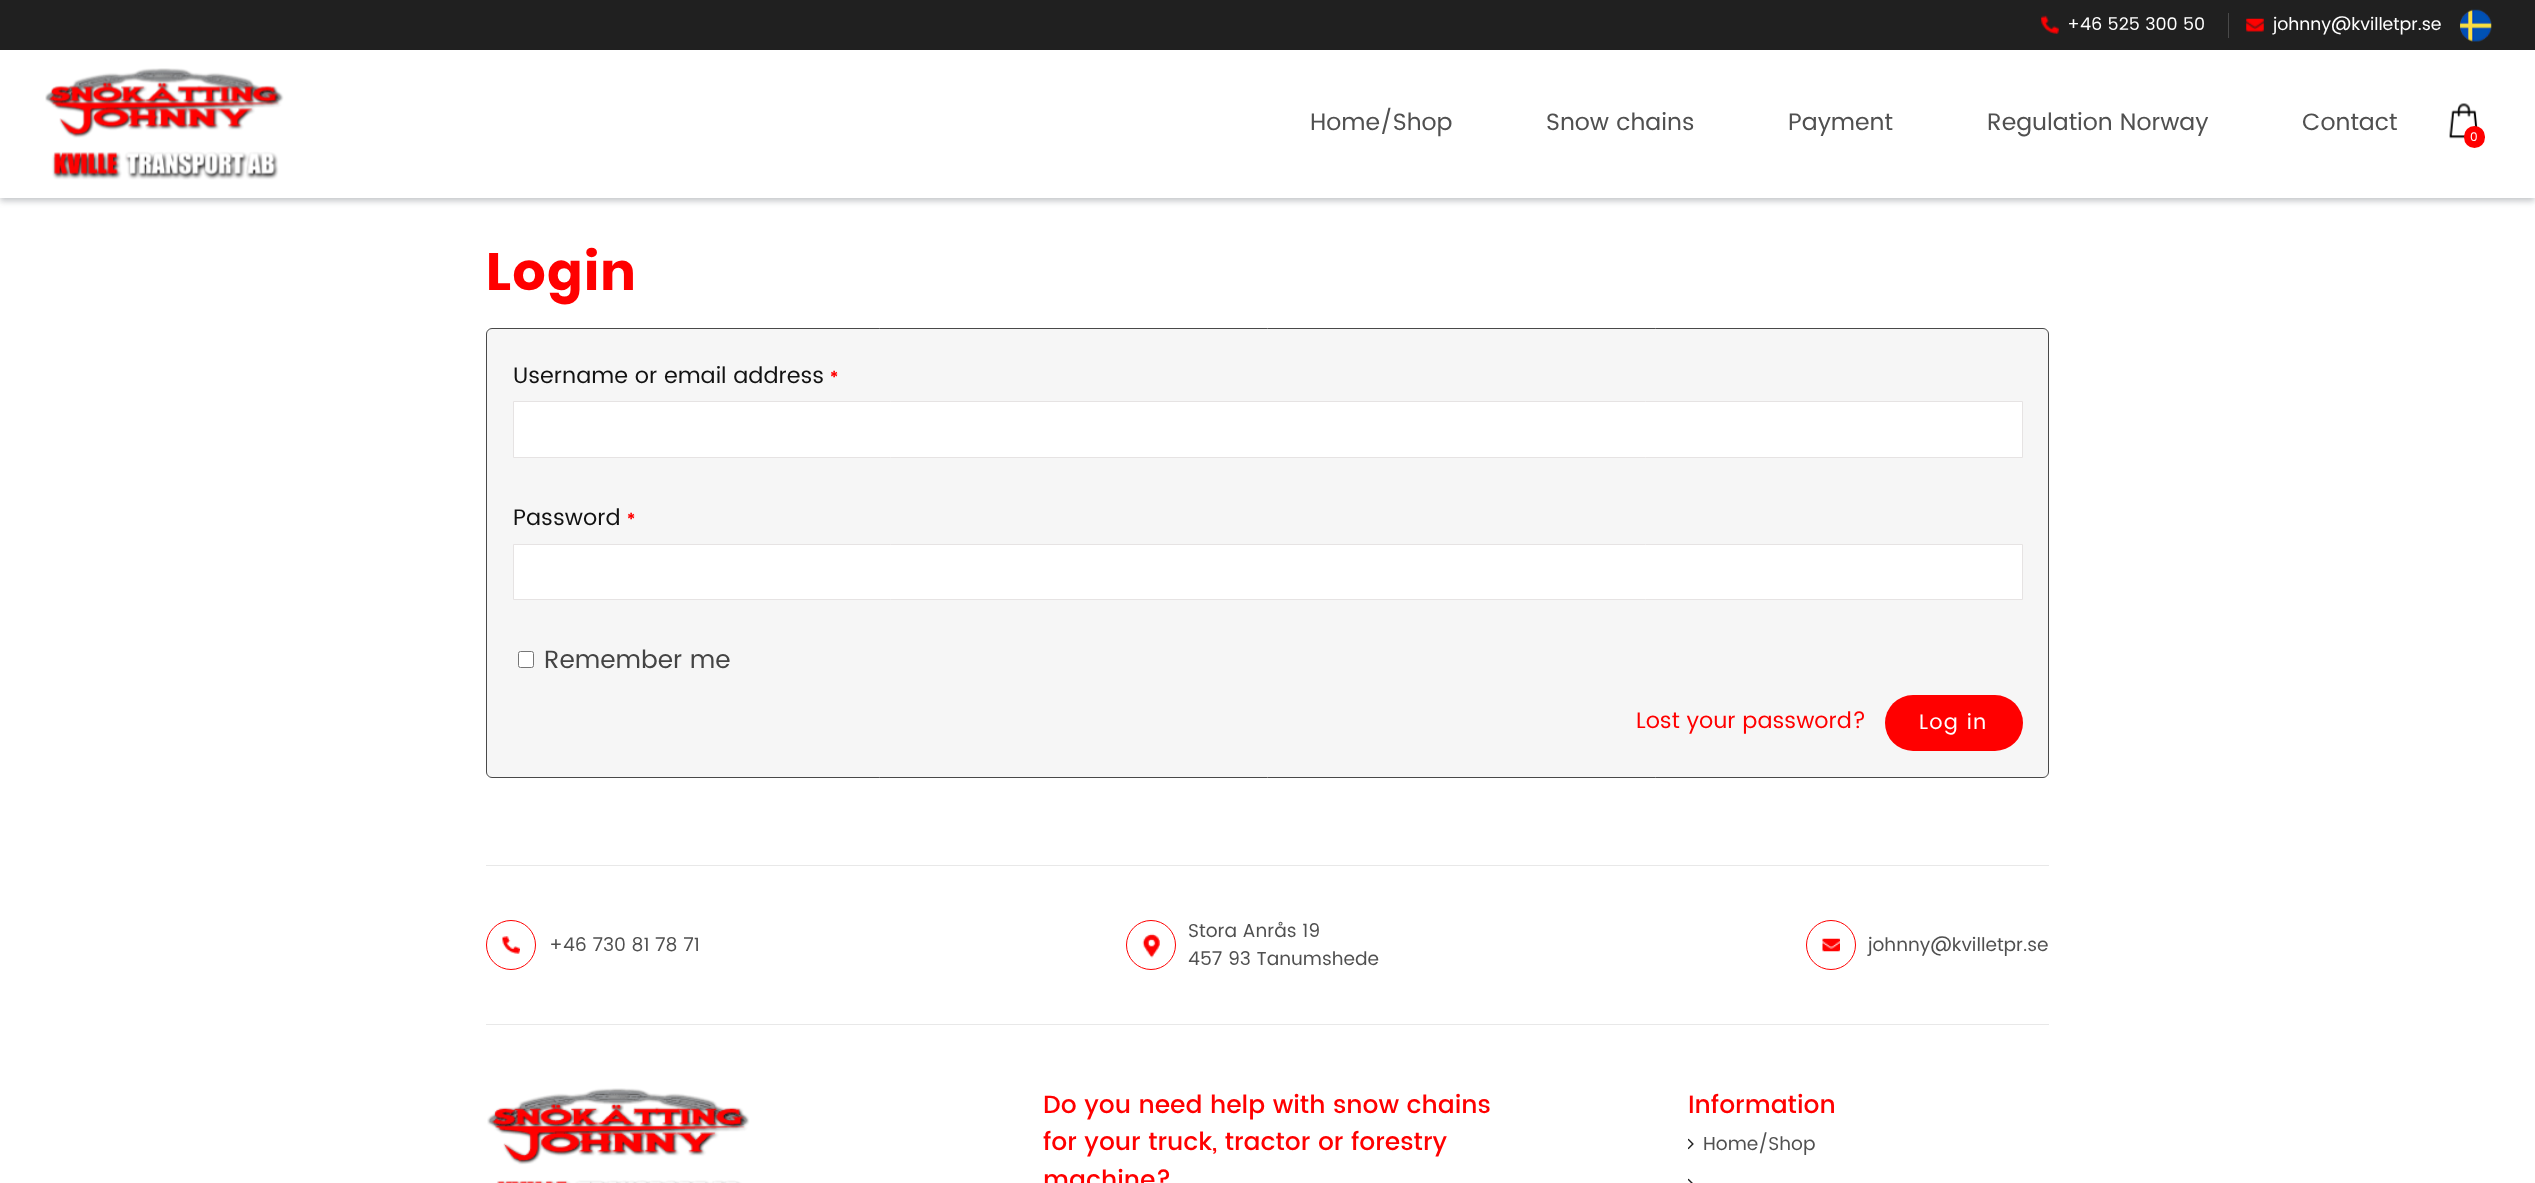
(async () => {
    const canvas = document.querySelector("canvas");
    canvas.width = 2535;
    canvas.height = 1183;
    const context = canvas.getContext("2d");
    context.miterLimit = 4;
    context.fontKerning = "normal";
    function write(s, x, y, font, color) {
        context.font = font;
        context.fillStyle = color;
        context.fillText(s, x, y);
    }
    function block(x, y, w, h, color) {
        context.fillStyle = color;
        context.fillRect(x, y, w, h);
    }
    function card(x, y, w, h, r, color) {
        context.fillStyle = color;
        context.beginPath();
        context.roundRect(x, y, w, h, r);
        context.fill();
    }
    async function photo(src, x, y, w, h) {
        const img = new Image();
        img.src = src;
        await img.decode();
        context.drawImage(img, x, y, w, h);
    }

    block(0, 0, 2535, 1183, "rgb(255, 255, 255)");
    context.fillStyle = "rgba(57, 63, 72, 0.3)";
    context.filter = "blur(3px)";
    context.beginPath();
    context.rect(0, 4, 2535, 197);
    context.fill();
    context.filter = "none";
    block(0, 0, 2535, 50, "rgb(32, 32, 32)");
    block(2228, 13, 1, 25, "rgb(73, 73, 73)");
    await photo("media/1.png", 2041, 15, 18, 19);
    write("+46 525 300 50", 2067, 30, "17.5px Poppins", "rgb(255, 255, 255)");
    await photo("media/2.png", 2246, 18, 18, 14);
    write("johnny@kvilletpr.se", 2273, 30, "17.5px Poppins", "rgb(255, 255, 255)");
    await photo("media/3.png", 2460, 9, 32, 33);
    block(0, 50, 2535, 148, "rgb(255, 255, 255)");
    await photo("media/4.png", 45, 68, 239, 112);
    write("Home/Shop", 1310, 130, "23.75px Poppins", "rgb(80, 80, 80)");
    write("Snow chains", 1546, 130, "23.75px Poppins", "rgb(80, 80, 80)");
    write("Payment", 1788, 130, "23.75px Poppins", "rgb(80, 80, 80)");
    write("Regulation Norway", 1987, 130, "23.75px Poppins", "rgb(80, 80, 80)");
    write("Contact", 2302, 130, "23.75px Poppins", "rgb(80, 80, 80)");
    await photo("media/5.png", 2449, 103, 29, 36);
    card(2464, 126, 21, 22, 10.5, "rgb(255, 0, 0)");
    write("0", 2470, 141, "12px Poppins", "rgb(255, 255, 255)");
    context.letterSpacing = "1.25px";
    write("Login", 486, 290, "bold 52.5px Poppins", "rgb(255, 0, 0)");
    context.fillStyle = "rgb(246, 246, 246)";
    context.beginPath();
    context.roundRect(486.5, 328.5, 1562, 449, 5.5);
    context.fill();
    context.strokeStyle = "rgb(73, 73, 73)";
    context.stroke();
    context.letterSpacing = "0px";
    write("Username or email address", 513, 383, "22.5px Poppins", "rgb(18, 18, 18)");
    write("*", 830, 383, "bold 16px 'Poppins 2'", "rgb(255, 0, 0)");
    context.fillStyle = "rgb(255, 255, 255)";
    context.beginPath();
    context.rect(513.5, 401.5, 1509, 56);
    context.fill();
    context.strokeStyle = "rgb(230, 227, 227)";
    context.stroke();
    write("Password", 513, 525, "22.5px Poppins", "rgb(18, 18, 18)");
    write("*", 627, 525, "bold 16px 'Poppins 2'", "rgb(255, 0, 0)");
    context.fillStyle = "rgb(255, 255, 255)";
    context.beginPath();
    context.rect(513.5, 544.5, 1509, 55);
    context.fill();
    context.stroke();
    context.beginPath();
    context.roundRect(518.5, 651.5, 15, 16, 2);
    context.fill();
    context.strokeStyle = "rgb(118, 118, 118)";
    context.stroke();
    write("Remember me", 544, 668, "25px Poppins", "rgb(68, 68, 68)");
    card(1885, 695, 138, 56, 28, "rgb(255, 0, 0)");
    context.letterSpacing = "1.25px";
    write("Log in", 1919, 729, "21px Poppins", "rgb(255, 255, 255)");
    context.letterSpacing = "0px";
    write("Lost your password?", 1636, 728, "22.5px Poppins", "rgb(255, 0, 0)");
    block(486, 865, 1563, 1, "rgb(232, 232, 232)");
    block(486, 1024, 1563, 1, "rgb(232, 232, 232)");
    context.beginPath();
    context.arc(511, 945, 24.5, 0, Math.PI * 2);
    context.strokeStyle = "rgb(255, 0, 0)";
    context.stroke();
    await photo("media/6.png", 502, 936, 18, 18);
    write("+46 730 81 78 71", 549, 951, "18.75px Poppins", "rgb(80, 80, 80)");
    context.beginPath();
    context.arc(1151, 945, 24.5, 0, Math.PI * 2);
    context.stroke();
    await photo("media/7.png", 1142, 933, 18, 25);
    write("Stora Anrås 19", 1188, 937, "18.75px Poppins", "rgb(80, 80, 80)");
    write("457 93 Tanumshede", 1188, 965, "18.75px Poppins", "rgb(80, 80, 80)");
    context.beginPath();
    context.arc(1831, 945, 24.5, 0, Math.PI * 2);
    context.stroke();
    await photo("media/8.png", 1822, 938, 18, 14);
    write("johnny@kvilletpr.se", 1868, 951, "18.75px Poppins", "rgb(80, 80, 80)");
    await photo("media/9.png", 487, 1088, 263, 95);
    write("Do you need help with snow chains", 1043, 1113, "500 25px Poppins", "rgb(255, 0, 0)");
    write("for your truck, tractor or forestry", 1043, 1150, "500 25px Poppins", "rgb(255, 0, 0)");
    write("machine?", 1043, 1188, "500 25px Poppins", "rgb(255, 0, 0)");
    write("Information", 1688, 1113, "500 25px Poppins", "rgb(255, 0, 0)");
    await photo("media/10.png", 1688, 1138, 6, 12);
    write("Home/Shop", 1703, 1150, "18.75px Poppins", "rgb(80, 80, 80)");
    await photo("media/11.png", 1688, 1178, 5, 5);
})();
